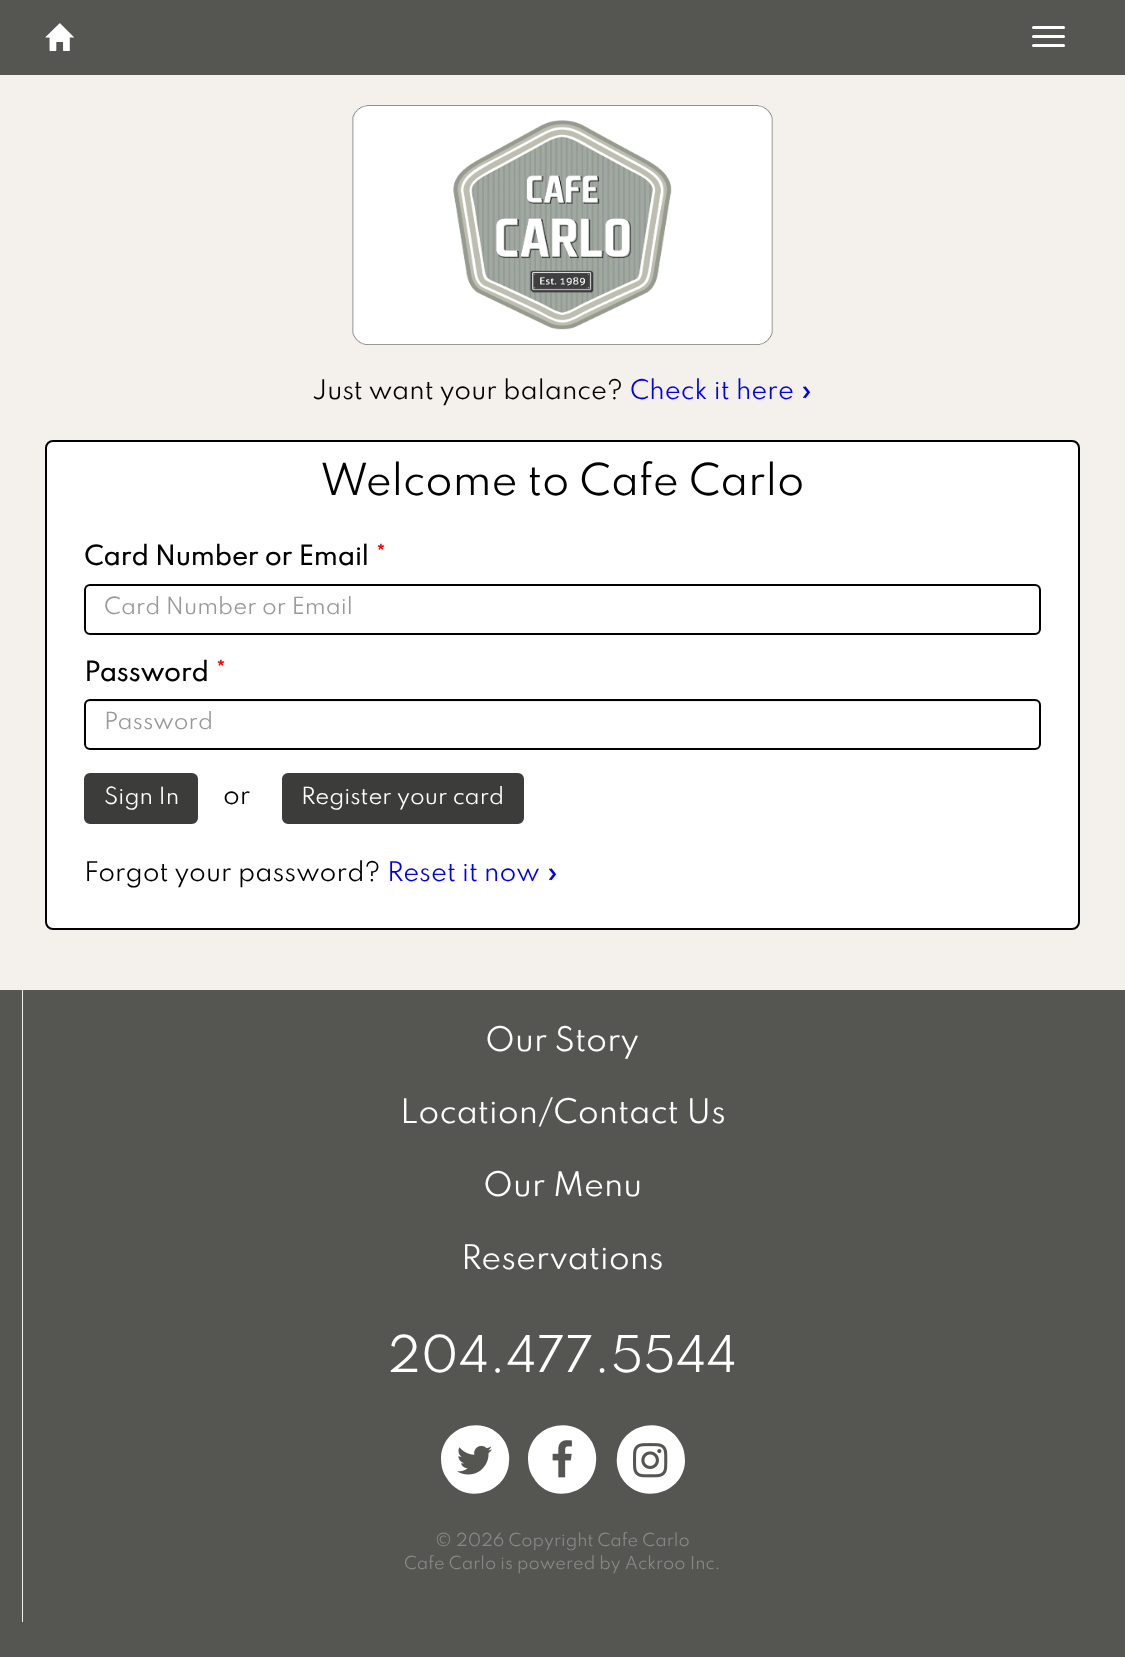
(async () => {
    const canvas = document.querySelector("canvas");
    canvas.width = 1125;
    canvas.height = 1657;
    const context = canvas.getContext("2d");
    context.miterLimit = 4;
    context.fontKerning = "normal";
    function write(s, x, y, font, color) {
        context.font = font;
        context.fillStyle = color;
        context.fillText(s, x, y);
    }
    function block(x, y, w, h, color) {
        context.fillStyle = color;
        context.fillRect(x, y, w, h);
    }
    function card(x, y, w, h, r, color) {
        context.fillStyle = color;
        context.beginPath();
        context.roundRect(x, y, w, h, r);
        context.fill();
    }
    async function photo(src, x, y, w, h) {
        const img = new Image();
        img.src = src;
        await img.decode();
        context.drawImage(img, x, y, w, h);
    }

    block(0, 0, 1125, 1657, "rgb(85, 85, 82)");
    await photo("media/1.png", 45, 23, 29, 28);
    card(1032, 26, 33, 3, 1.5, "rgb(255, 255, 255)");
    card(1032, 35, 33, 3, 1.5, "rgb(255, 255, 255)");
    card(1032, 44, 33, 3, 1.5, "rgb(255, 255, 255)");
    block(0, 75, 1125, 1547, "rgb(244, 241, 236)");
    await photo("media/2.png", 352, 105, 421, 240);
    write("Just want your balance?", 312, 399, "100 24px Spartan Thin", "rgb(0, 0, 0)");
    write("Check it here »", 630, 399, "100 24px Spartan Thin", "rgb(0, 0, 238)");
    context.fillStyle = "rgb(255, 255, 255)";
    context.beginPath();
    context.roundRect(46, 441, 1033, 488, 7);
    context.fill();
    context.strokeStyle = "rgb(0, 0, 0)";
    context.lineWidth = 2;
    context.stroke();
    write("Welcome to Cafe Carlo", 320, 495, "100 39px Spartan Thin", "rgb(0, 0, 0)");
    write("Card Number or Email", 84, 565, "bold 24px Spartan Thin", "rgb(0, 0, 0)");
    write("*", 375, 565, "bold 24px Spartan Thin", "rgb(255, 0, 0)");
    context.fillStyle = "rgb(236, 236, 236)";
    context.beginPath();
    context.moveTo(90, 586);
    context.lineTo(1035, 586);
    context.bezierCurveTo(1037, 586, 1040, 589, 1040, 591);
    context.bezierCurveTo(1040, 588, 1038, 585, 1035, 585);
    context.lineTo(91, 585);
    context.bezierCurveTo(88, 585, 86, 588, 86, 591);
    context.bezierCurveTo(86, 589, 88, 586, 90, 586);
    context.closePath();
    context.fill();
    context.beginPath();
    context.roundRect(85, 585, 955, 49, 5);
    context.stroke();
    write("Card Number or Email", 104, 614, "100 21px Spartan Thin", "rgb(153, 153, 153)");
    write("Password", 84, 681, "bold 24px Spartan Thin", "rgb(0, 0, 0)");
    write("*", 215, 681, "bold 24px Spartan Thin", "rgb(255, 0, 0)");
    context.fillStyle = "rgb(236, 236, 236)";
    context.beginPath();
    context.moveTo(90, 702);
    context.lineTo(1035, 702);
    context.bezierCurveTo(1037, 702, 1040, 704, 1040, 706);
    context.bezierCurveTo(1040, 703, 1038, 701, 1035, 701);
    context.lineTo(91, 701);
    context.bezierCurveTo(88, 701, 86, 703, 86, 706);
    context.bezierCurveTo(86, 704, 88, 702, 90, 702);
    context.closePath();
    context.fill();
    context.beginPath();
    context.roundRect(85, 700, 955, 49, 5);
    context.stroke();
    write("Password", 104, 729, "100 21px Spartan Thin", "rgb(153, 153, 153)");
    context.fillStyle = "rgb(60, 60, 59)";
    context.beginPath();
    context.roundRect(85, 774, 112, 49, 5);
    context.fill();
    context.strokeStyle = "rgb(60, 60, 59)";
    context.stroke();
    write("Sign In", 104, 804, "100 21px Spartan Thin", "rgb(255, 255, 255)");
    write("or", 223, 804, "100 24px Spartan Thin", "rgb(0, 0, 0)");
    context.fillStyle = "rgb(60, 60, 59)";
    context.beginPath();
    context.roundRect(283, 774, 240, 49, 5);
    context.fill();
    context.stroke();
    write("Register your card", 301, 804, "100 21px Spartan Thin", "rgb(255, 255, 255)");
    write("Forgot your password?", 84, 881, "100 24px Spartan Thin", "rgb(0, 0, 0)");
    write("Reset it now »", 387, 881, "100 24px Spartan Thin", "rgb(0, 0, 238)");
    context.fillStyle = "rgb(85, 85, 82)";
    context.beginPath();
    context.moveTo(-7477, 990);
    context.lineTo(-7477, 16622);
    context.lineTo(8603, 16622);
    context.lineTo(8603, 990);
    context.lineTo(1102, 990);
    context.lineTo(1102, 1622);
    context.lineTo(22, 1622);
    context.lineTo(22, 990);
    context.closePath();
    context.fill();
    block(23, 990, 1079, 632, "rgb(85, 85, 82)");
    write("Our Story", 485, 1051, "100 30px Spartan Thin", "rgb(255, 255, 255)");
    write("Location/Contact Us", 400, 1123, "100 30px Spartan Thin", "rgb(255, 255, 255)");
    write("Our Menu", 483, 1196, "100 30px Spartan Thin", "rgb(255, 255, 255)");
    write("Reservations", 461, 1269, "100 30px Spartan Thin", "rgb(255, 255, 255)");
    write("204.477.5544", 388, 1372, "100 45px Spartan Thin", "rgb(255, 255, 255)");
    context.beginPath();
    context.moveTo(505, 1442);
    context.bezierCurveTo(508, 1448, 510, 1455, 509, 1462);
    context.bezierCurveTo(507, 1495, 462, 1506, 446, 1477);
    context.bezierCurveTo(442, 1471, 441, 1464, 441, 1457);
    context.bezierCurveTo(443, 1424, 488, 1413, 505, 1442);
    context.closePath();
    context.fill();
    await photo("media/3.png", 457, 1445, 35, 30);
    context.beginPath();
    context.moveTo(592, 1442);
    context.bezierCurveTo(595, 1448, 597, 1455, 596, 1462);
    context.bezierCurveTo(594, 1495, 549, 1506, 533, 1477);
    context.bezierCurveTo(529, 1471, 528, 1464, 528, 1457);
    context.bezierCurveTo(530, 1424, 575, 1413, 592, 1442);
    context.closePath();
    context.fill();
    await photo("media/4.png", 552, 1440, 20, 38);
    context.beginPath();
    context.moveTo(680, 1442);
    context.bezierCurveTo(684, 1448, 685, 1455, 685, 1462);
    context.bezierCurveTo(683, 1495, 638, 1506, 621, 1477);
    context.bezierCurveTo(618, 1471, 616, 1464, 617, 1457);
    context.bezierCurveTo(619, 1424, 664, 1413, 680, 1442);
    context.closePath();
    context.fill();
    await photo("media/5.png", 633, 1443, 35, 35);
    write("© 2026 Copyright Cafe Carlo", 435, 1546, "100 16px Spartan Thin", "rgb(136, 136, 134)");
    write("Cafe Carlo is powered by Ackroo Inc.", 404, 1569, "100 16px Spartan Thin", "rgb(136, 136, 134)");
})();
